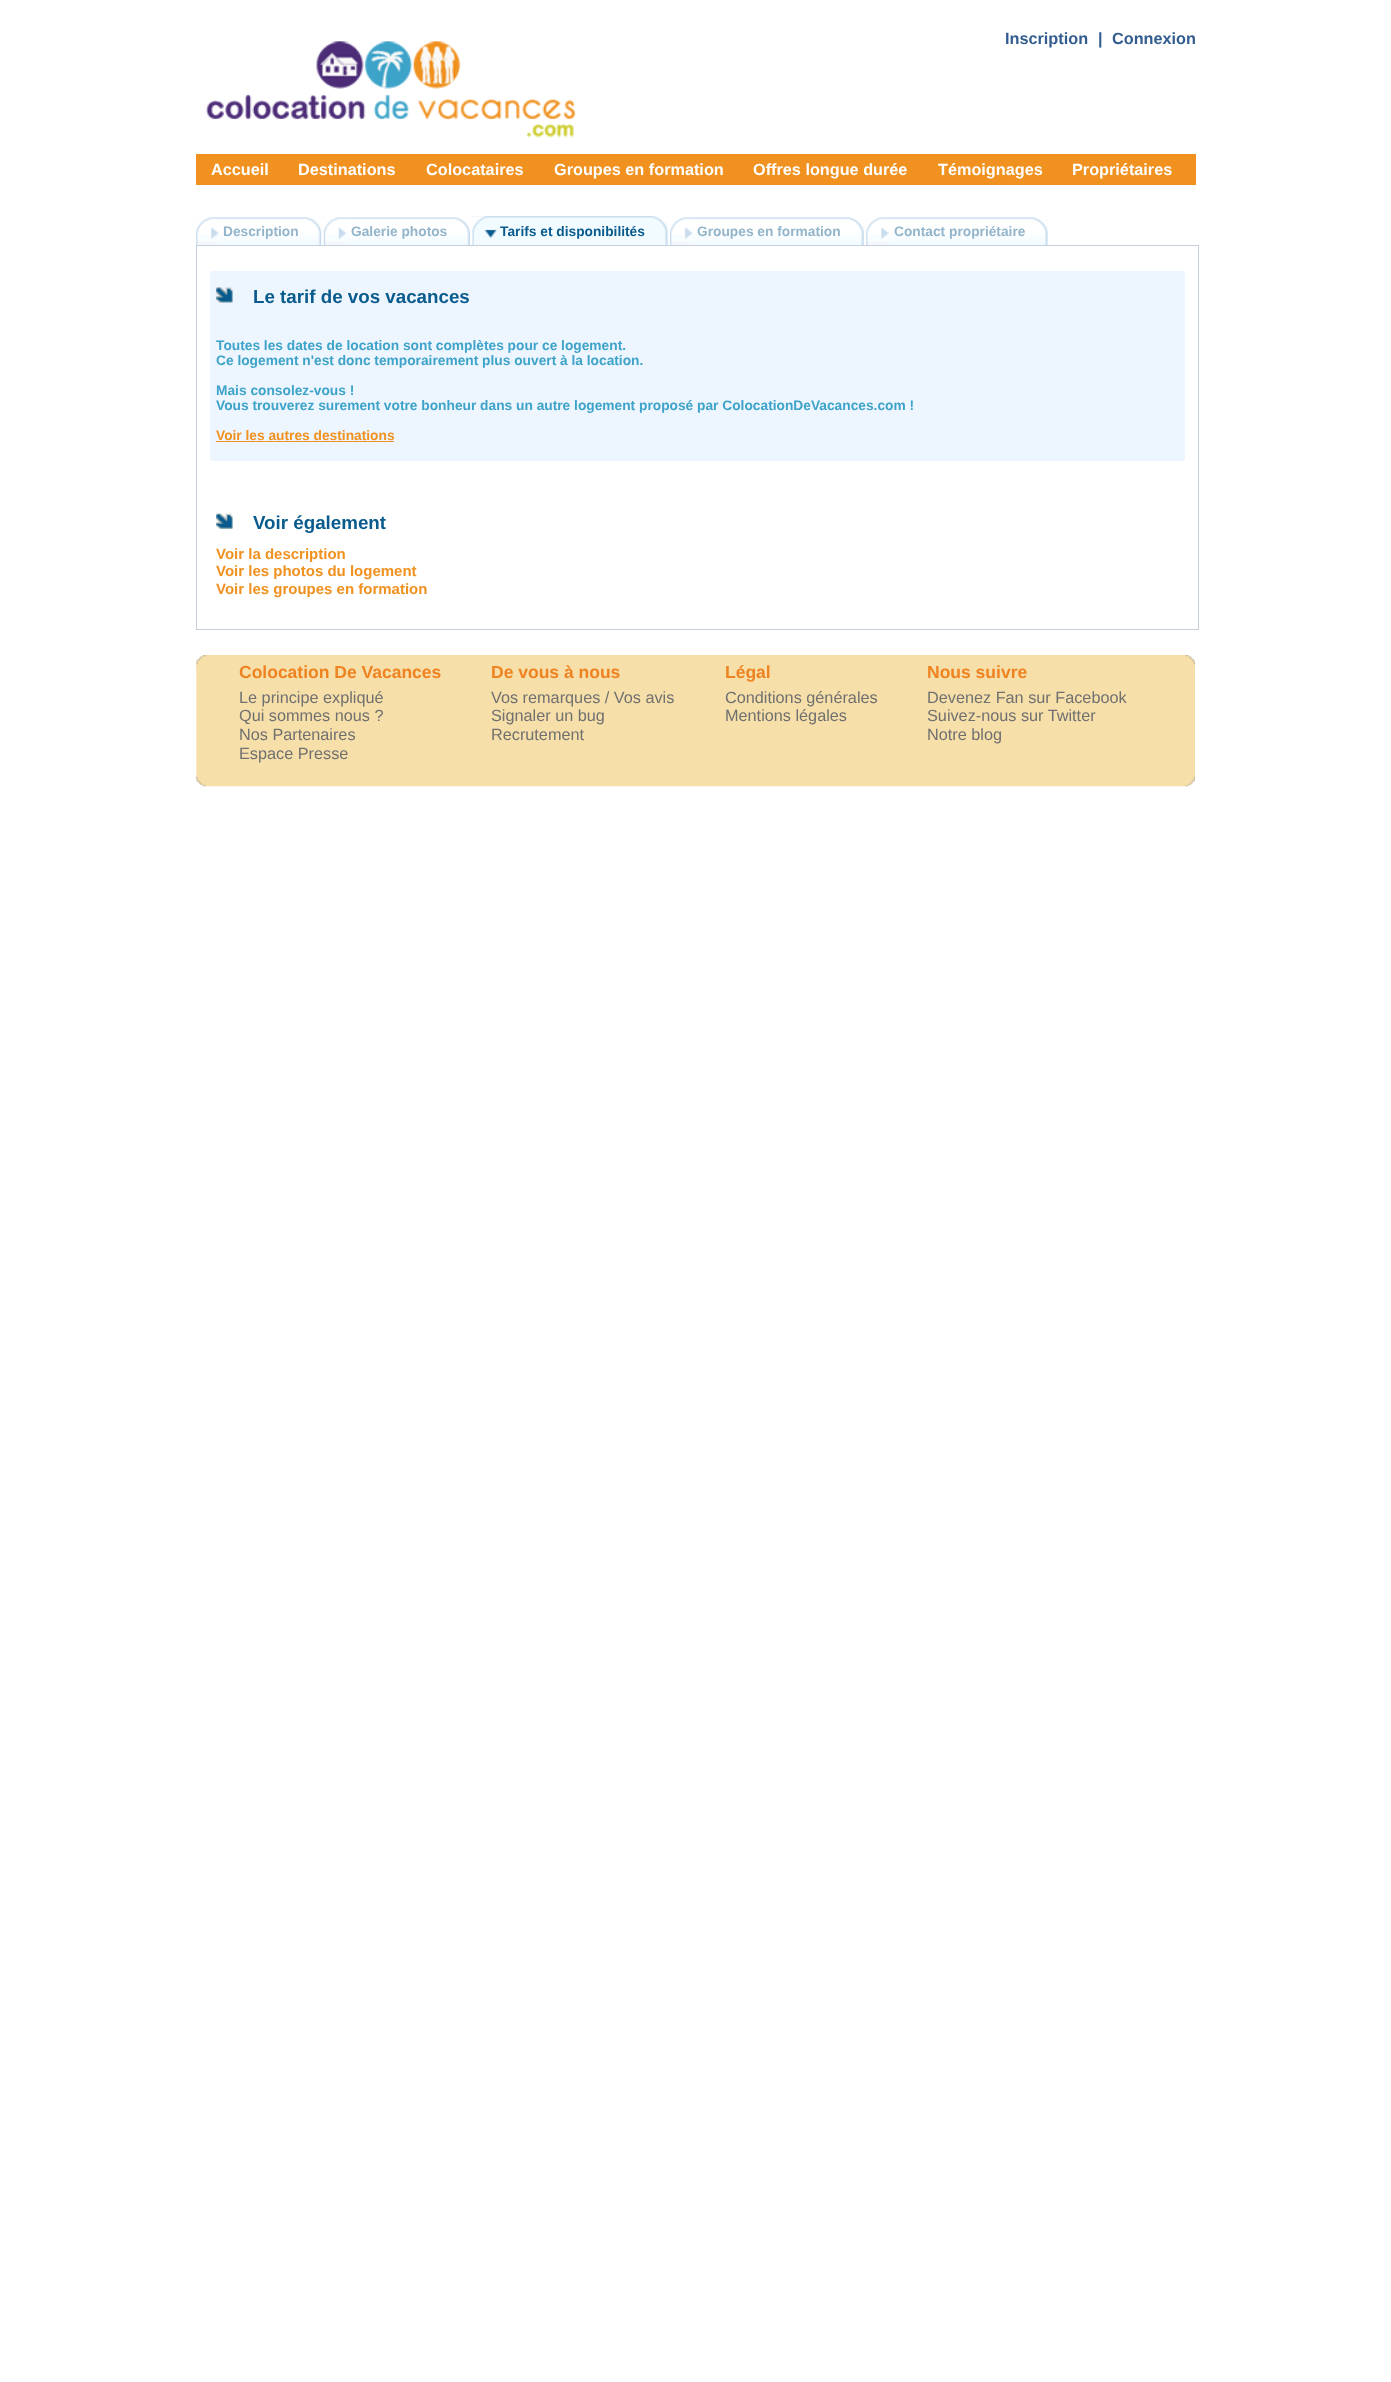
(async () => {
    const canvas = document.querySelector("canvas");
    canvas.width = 1391;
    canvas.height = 2382;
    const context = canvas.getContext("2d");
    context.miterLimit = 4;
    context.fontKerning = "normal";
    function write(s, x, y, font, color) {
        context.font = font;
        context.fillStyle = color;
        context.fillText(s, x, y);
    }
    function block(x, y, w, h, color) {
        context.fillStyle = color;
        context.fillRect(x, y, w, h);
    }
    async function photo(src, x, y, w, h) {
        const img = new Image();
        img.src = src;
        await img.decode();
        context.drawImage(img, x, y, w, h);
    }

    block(0, 0, 1391, 2382, "rgb(255, 255, 255)");
    write("Inscription", 1005, 44, "bold 16.25px Liberation Sans", "rgb(50, 91, 142)");
    write("|", 1098, 44, "bold 16.25px Liberation Sans", "rgb(50, 91, 142)");
    write("Connexion", 1112, 44, "bold 16.25px Liberation Sans", "rgb(50, 91, 142)");
    await photo("media/1.png", 206, 41, 370, 97);
    block(196, 154, 1000, 31, "rgb(240, 145, 32)");
    write("Accueil", 211, 175, "bold 16.25px Liberation Sans", "rgb(255, 255, 255)");
    write("Destinations", 298, 175, "bold 16.25px Liberation Sans", "rgb(255, 255, 255)");
    write("Colocataires", 426, 175, "bold 16.25px Liberation Sans", "rgb(255, 255, 255)");
    write("Groupes en formation", 554, 175, "bold 16.25px Liberation Sans", "rgb(255, 255, 255)");
    write("Offres longue durée", 753, 175, "bold 16.25px Liberation Sans", "rgb(255, 255, 255)");
    write("Témoignages", 938, 175, "bold 16.25px Liberation Sans", "rgb(255, 255, 255)");
    write("Propriétaires", 1072, 175, "bold 16.25px Liberation Sans", "rgb(255, 255, 255)");
    block(196, 216, 125, 29, "rgb(242, 251, 255)");
    await photo("media/2.png", 196, 216, 126, 29);
    await photo("media/3.png", 196, 217, 23, 28);
    write("Description", 223, 236, "bold 13.75px Liberation Sans", "rgb(146, 181, 203)");
    await photo("media/4.png", 323, 216, 147, 29);
    await photo("media/5.png", 323, 217, 24, 28);
    write("Galerie photos", 351, 236, "bold 13.75px Liberation Sans", "rgb(146, 181, 203)");
    block(473, 216, 195, 29, "rgb(242, 251, 255)");
    await photo("media/6.png", 472, 216, 196, 29);
    await photo("media/7.png", 472, 216, 179, 29);
    write("Tarifs et disponibilités", 500, 236, "bold 13.75px Liberation Sans", "rgb(9, 91, 142)");
    block(670, 216, 194, 29, "rgb(242, 251, 255)");
    await photo("media/8.png", 670, 216, 194, 29);
    await photo("media/9.png", 670, 217, 23, 28);
    write("Groupes en formation", 697, 236, "bold 13.75px Liberation Sans", "rgb(146, 181, 203)");
    block(866, 216, 182, 29, "rgb(242, 251, 255)");
    await photo("media/10.png", 866, 216, 182, 29);
    await photo("media/11.png", 866, 217, 23, 28);
    write("Contact propriétaire", 894, 236, "bold 13.75px Liberation Sans", "rgb(146, 181, 203)");
    context.strokeStyle = "rgb(199, 207, 220)";
    context.strokeRect(196.5, 245.5, 1002, 384);
    block(210, 271, 975, 190, "rgb(237, 245, 255)");
    await photo("media/12.png", 216, 287, 17, 16);
    write("Le tarif de vos vacances", 253, 303, "bold 18.75px Liberation Sans", "rgb(9, 91, 142)");
    write("Toutes les dates de location sont complètes pour ce logement.", 216, 350, "bold 13.75px Liberation Sans", "rgb(61, 163, 201)");
    write("Ce logement n'est donc temporairement plus ouvert à la location.", 216, 365, "bold 13.75px Liberation Sans", "rgb(61, 163, 201)");
    write("Mais consolez-vous !", 216, 395, "bold 13.75px Liberation Sans", "rgb(61, 163, 201)");
    write("Vous trouverez surement votre bonheur dans un autre logement proposé par ColocationDeVacances.com !", 216, 410, "bold 13.75px Liberation Sans", "rgb(61, 163, 201)");
    write("Voir les autres destinations", 216, 440, "bold 13.75px Liberation Sans", "rgb(240, 145, 32)");
    block(216, 441, 178, 1, "rgb(240, 145, 32)");
    await photo("media/13.png", 216, 513, 17, 16);
    write("Voir également", 253, 529, "bold 18.75px Liberation Sans", "rgb(9, 91, 142)");
    write("Voir la description", 216, 559, "bold 15px Liberation Sans", "rgb(240, 145, 32)");
    write("Voir les photos du logement", 216, 576, "bold 15px Liberation Sans", "rgb(240, 145, 32)");
    write("Voir les groupes en formation", 216, 594, "bold 15px Liberation Sans", "rgb(240, 145, 32)");
    await photo("media/14.png", 196, 655, 999, 132);
    write("Colocation De Vacances", 239, 678, "bold 17.5px Liberation Sans", "rgb(239, 131, 33)");
    write("De vous à nous", 491, 678, "bold 17.5px Liberation Sans", "rgb(239, 131, 33)");
    write("Légal", 725, 678, "bold 17.5px Liberation Sans", "rgb(239, 131, 33)");
    write("Nous suivre", 927, 678, "bold 17.5px Liberation Sans", "rgb(239, 131, 33)");
    write("Le principe expliqué", 239, 703, "16.25px Liberation Sans", "rgb(112, 112, 112)");
    write("Vos remarques / Vos avis", 491, 703, "16.25px Liberation Sans", "rgb(112, 112, 112)");
    write("Conditions générales", 725, 703, "16.25px Liberation Sans", "rgb(112, 112, 112)");
    write("Devenez Fan sur Facebook", 927, 703, "16.25px Liberation Sans", "rgb(112, 112, 112)");
    write("Qui sommes nous ?", 239, 721, "16.25px Liberation Sans", "rgb(112, 112, 112)");
    write("Signaler un bug", 491, 721, "16.25px Liberation Sans", "rgb(112, 112, 112)");
    write("Mentions légales", 725, 721, "16.25px Liberation Sans", "rgb(112, 112, 112)");
    write("Suivez-nous sur Twitter", 927, 721, "16.25px Liberation Sans", "rgb(112, 112, 112)");
    write("Nos Partenaires", 239, 740, "16.25px Liberation Sans", "rgb(112, 112, 112)");
    write("Recrutement", 491, 740, "16.25px Liberation Sans", "rgb(112, 112, 112)");
    write("Notre blog", 927, 740, "16.25px Liberation Sans", "rgb(112, 112, 112)");
    write("Espace Presse", 239, 759, "16.25px Liberation Sans", "rgb(112, 112, 112)");
})();
